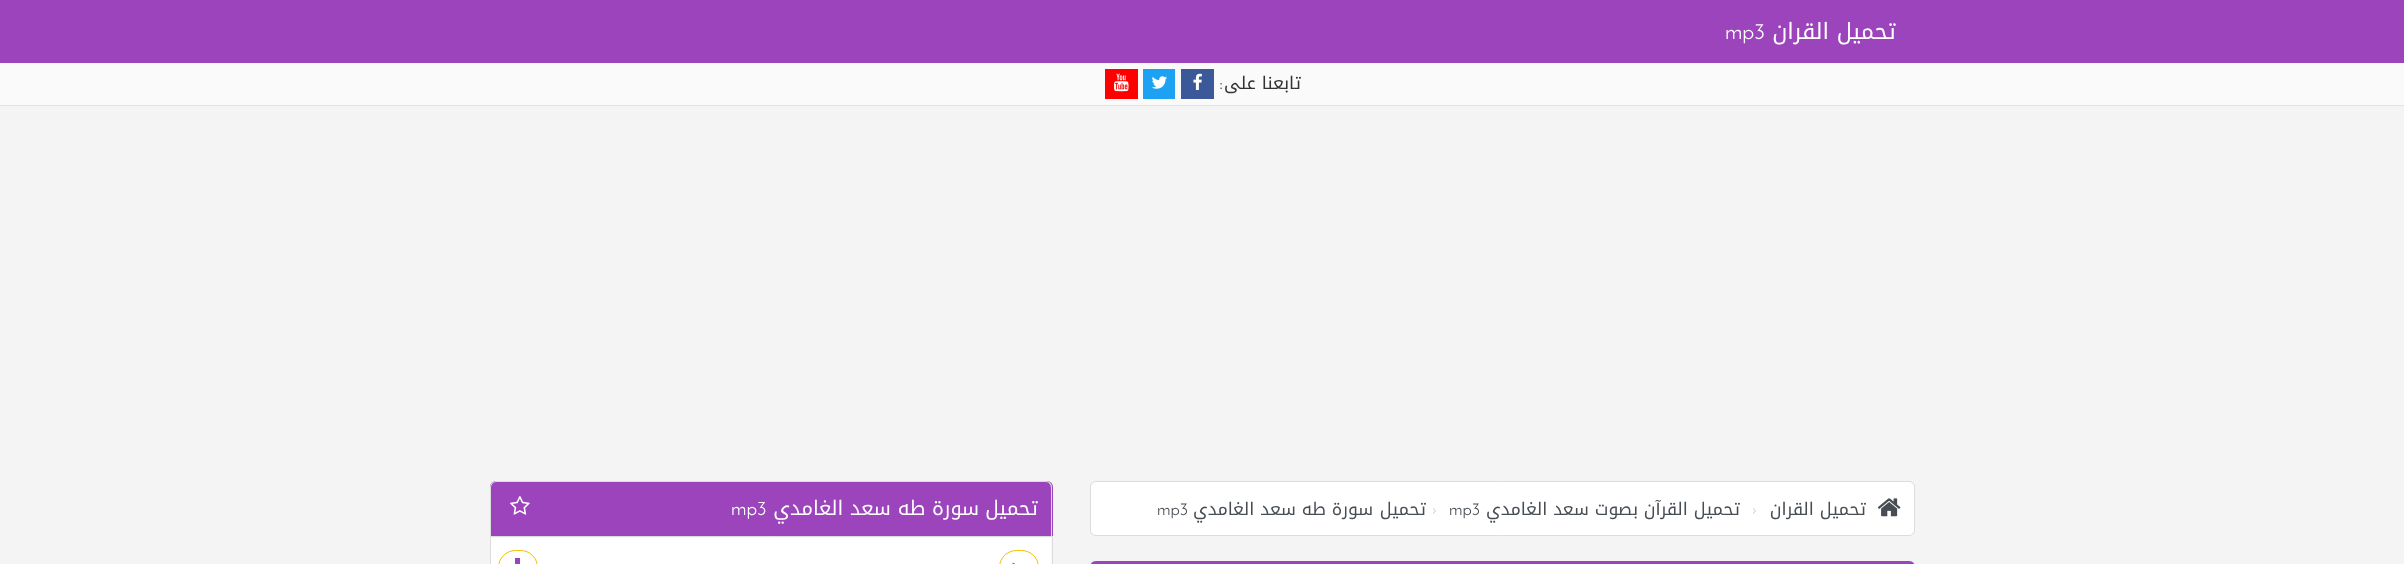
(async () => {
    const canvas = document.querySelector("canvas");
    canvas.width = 2404;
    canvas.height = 564;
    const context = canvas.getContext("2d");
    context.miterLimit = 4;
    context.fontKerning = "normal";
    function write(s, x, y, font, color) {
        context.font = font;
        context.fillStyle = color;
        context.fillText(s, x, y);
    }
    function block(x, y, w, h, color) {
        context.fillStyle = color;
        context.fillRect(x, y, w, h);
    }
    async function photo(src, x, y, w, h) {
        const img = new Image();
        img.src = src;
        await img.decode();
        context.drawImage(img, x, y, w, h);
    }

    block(0, 0, 2404, 564, "rgb(244, 244, 244)");
    block(0, 0, 2404, 63, "rgb(155, 68, 187)");
    context.direction = "rtl";
    write("تحميل القران", 1896, 39, "22.5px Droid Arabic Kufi", "rgb(255, 255, 255)");
    context.direction = "ltr";
    write("mp3", 1725, 39, "22.5px Josefin Sans", "rgb(255, 255, 255)");
    block(0, 63, 2404, 42, "rgb(251, 250, 250)");
    block(0, 105, 2404, 1, "rgb(230, 224, 224)");
    context.direction = "rtl";
    write("تابعنا على", 1301, 89, "17.5px Droid Arabic Kufi", "rgb(51, 51, 51)");
    write(":", 1223, 89, "17.5px Josefin Sans", "rgb(51, 51, 51)");
    block(1181, 69, 33, 30, "rgb(59, 89, 152)");
    await photo("media/1.png", 1193, 73, 9, 17);
    block(1143, 69, 32, 30, "rgb(29, 161, 242)");
    await photo("media/2.png", 1151, 76, 16, 13);
    block(1105, 69, 33, 30, "rgb(255, 0, 0)");
    await photo("media/3.png", 1114, 73, 15, 19);
    context.fillStyle = "rgb(255, 255, 255)";
    context.beginPath();
    context.roundRect(1090.5, 481.5, 824, 54, 5.5);
    context.fill();
    context.strokeStyle = "rgb(220, 220, 220)";
    context.stroke();
    await photo("media/4.png", 1877, 498, 24, 19);
    write("تحميل القران", 1866, 515, "17.5px Droid Arabic Kufi", "rgb(71, 77, 83)");
    context.direction = "ltr";
    write("›", 1752, 515, "17.5px Josefin Sans", "rgb(204, 204, 204)");
    context.direction = "rtl";
    write("تحميل القرآن", 1740, 515, "17.5px Droid Arabic Kufi", "rgb(71, 77, 83)");
    write("بصوت سعد الغامدي", 1638, 515, "17.5px Droid Arabic Kufi", "rgb(71, 77, 83)");
    context.direction = "ltr";
    write("mp3", 1449, 515, "17.5px Josefin Sans", "rgb(71, 77, 83)");
    write("›", 1432, 515, "17.5px Josefin Sans", "rgb(204, 204, 204)");
    context.direction = "rtl";
    write("تحميل", 1426, 515, "17.5px Droid Arabic Kufi", "rgb(71, 77, 83)");
    write("سورة طه سعد الغامدي", 1373, 515, "17.5px Droid Arabic Kufi", "rgb(71, 77, 83)");
    context.direction = "ltr";
    write("mp3", 1157, 515, "17.5px Josefin Sans", "rgb(71, 77, 83)");
    context.fillStyle = "rgb(155, 68, 187)";
    context.beginPath();
    context.moveTo(1096, 561);
    context.lineTo(1909, 561);
    context.bezierCurveTo(1912.5, 561, 1915, 563.5, 1915, 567);
    context.lineTo(1915, 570);
    context.lineTo(1090, 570);
    context.lineTo(1090, 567);
    context.bezierCurveTo(1090, 563.5, 1092.5, 561, 1096, 561);
    context.closePath();
    context.fill();
    context.beginPath();
    context.roundRect(490, 481, 563, 55, [6, 6, 0, 0]);
    context.fill();
    context.fillStyle = "rgb(220, 220, 220)";
    context.beginPath();
    context.moveTo(496, 481);
    context.lineTo(1046, 481);
    context.bezierCurveTo(1050, 481, 1052, 484, 1052, 488);
    context.lineTo(1052, 536);
    context.lineTo(490, 536);
    context.lineTo(490, 488);
    context.bezierCurveTo(490, 484, 493, 481, 496, 481);
    context.closePath();
    context.moveTo(496, 482);
    context.lineTo(1046, 482);
    context.bezierCurveTo(1049, 482, 1051, 485, 1051, 488);
    context.lineTo(1051, 536);
    context.lineTo(491, 536);
    context.lineTo(491, 488);
    context.bezierCurveTo(491, 485, 493, 482, 496, 482);
    context.closePath();
    context.fill("evenodd");
    context.direction = "rtl";
    write("تحميل", 1038, 515, "20px Droid Arabic Kufi", "rgb(255, 255, 255)");
    write("سورة طه سعد الغامدي", 979, 515, "20px Droid Arabic Kufi", "rgb(255, 255, 255)");
    context.direction = "ltr";
    write("mp3", 731, 515, "20px Josefin Sans", "rgb(255, 255, 255)");
    await photo("media/5.png", 510, 496, 20, 19);
    context.fillStyle = "rgb(248, 248, 248)";
    context.beginPath();
    context.rect(490.5, 536.5, 562, 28);
    context.fill();
    context.stroke();
    block(491, 538, 560, 26, "rgb(255, 255, 255)");
    context.beginPath();
    context.roundRect(999.5, 550.5, 39, 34, 19.5);
    context.strokeStyle = "rgb(242, 193, 0)";
    context.stroke();
    await photo("media/6.png", 1012, 562, 4, 2);
    context.beginPath();
    context.roundRect(498.5, 550.5, 39, 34, 19.5);
    context.stroke();
    block(515, 558, 5, 6, "rgb(155, 68, 187)");
})();
